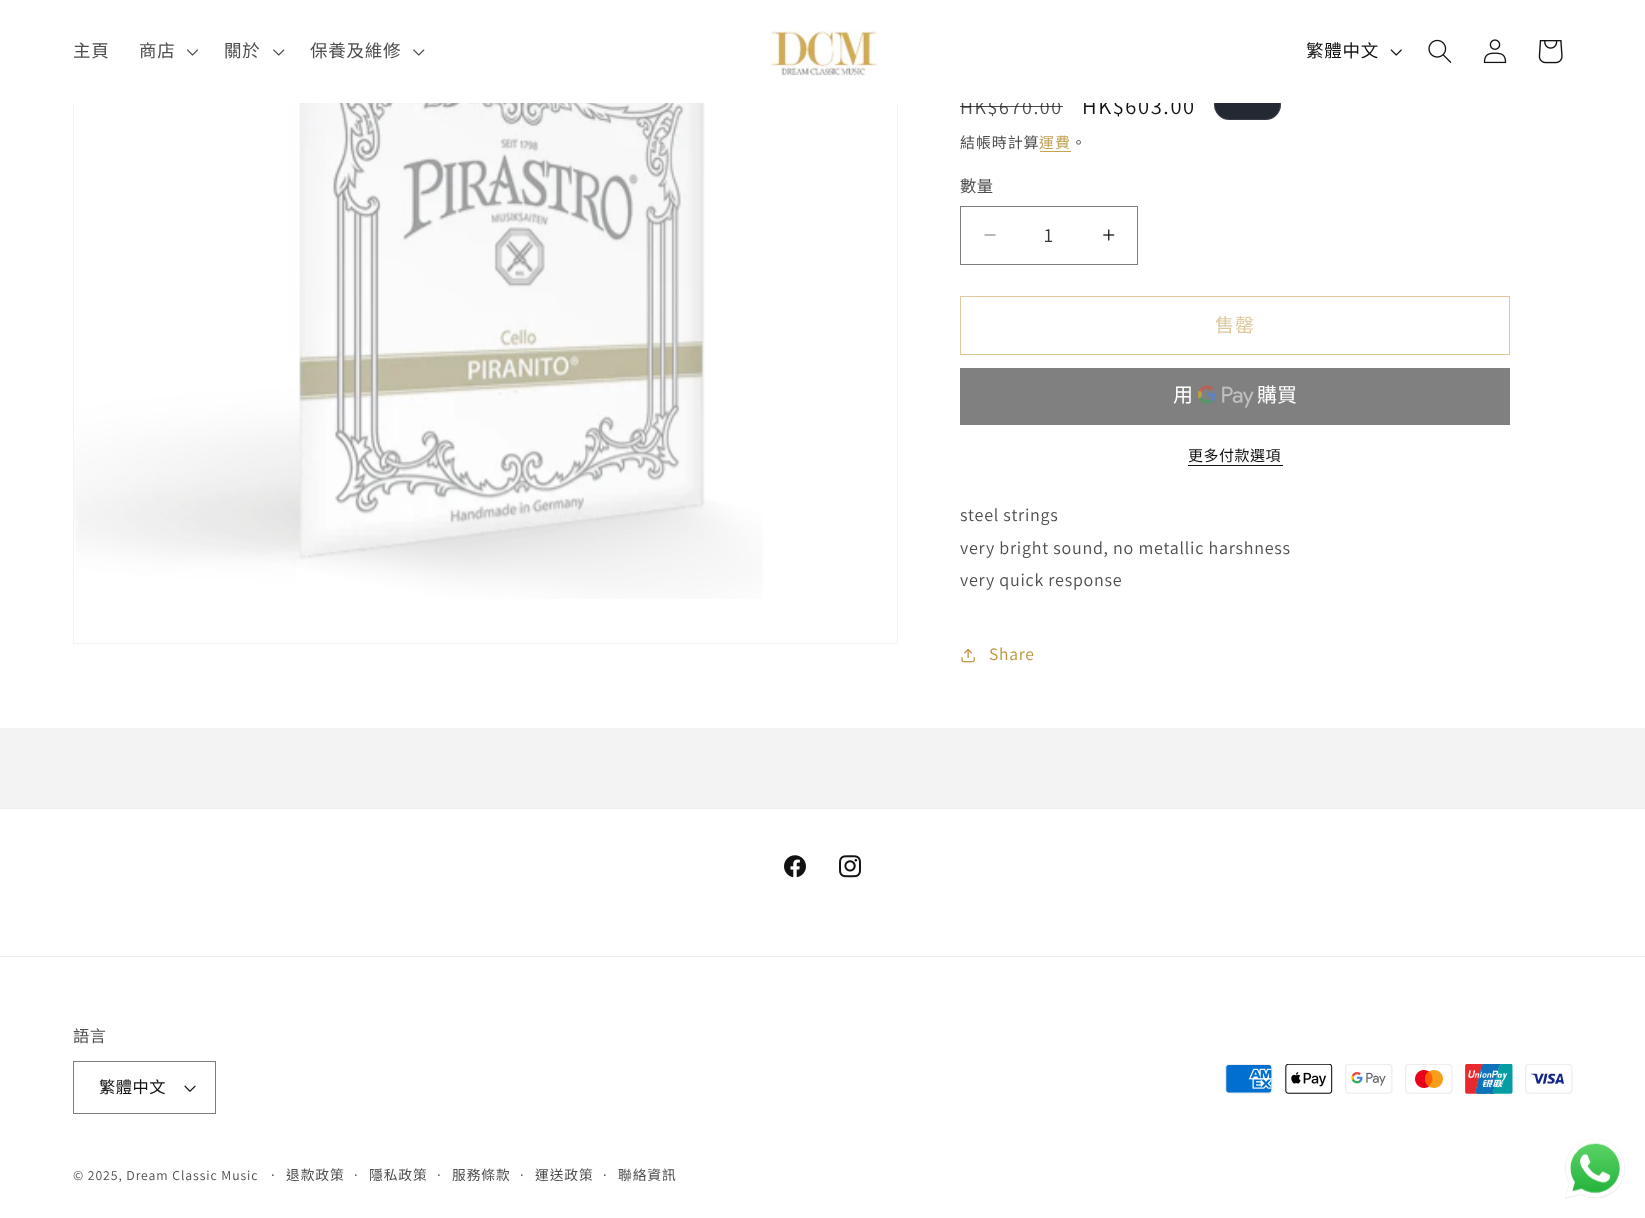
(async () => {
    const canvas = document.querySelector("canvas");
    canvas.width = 1645;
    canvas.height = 1218;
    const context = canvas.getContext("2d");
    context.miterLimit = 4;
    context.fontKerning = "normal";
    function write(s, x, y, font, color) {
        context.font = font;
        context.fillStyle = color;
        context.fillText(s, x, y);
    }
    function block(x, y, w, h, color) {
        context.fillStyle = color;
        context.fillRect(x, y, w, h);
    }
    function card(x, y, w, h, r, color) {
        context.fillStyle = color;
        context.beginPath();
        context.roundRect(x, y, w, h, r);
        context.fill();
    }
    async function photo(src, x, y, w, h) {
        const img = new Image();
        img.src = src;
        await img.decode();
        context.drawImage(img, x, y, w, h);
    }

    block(0, 0, 1645, 1218, "rgb(255, 255, 255)");
    context.strokeStyle = "rgb(243, 243, 243)";
    context.strokeRect(73.5, 38.5, 824, 605);
    context.letterSpacing = "1.6px";
    write("HK$670.00", 960, 114, "20px Assistant", "rgb(77, 77, 77)");
    write("HK$603.00", 1082, 114, "22.5px Assistant", "rgb(18, 18, 18)");
    card(1214, 89, 67, 31, 15.5, "rgb(36, 40, 51)");
    context.beginPath();
    context.roundRect(1214.5, 89.5, 66, 30, 15);
    context.strokeStyle = "rgba(255, 255, 255, 0.1)";
    context.stroke();
    block(73, 38, 1208, 65, "rgb(255, 255, 255)");
    context.letterSpacing = "0.75px";
    write("主頁", 73, 57, "17.5px Noto Sans CJK TC", "rgb(77, 77, 77)");
    write("商店", 139, 57, "17.5px Noto Sans CJK TC", "rgb(77, 77, 77)");
    await photo("media/1.png", 187, 49, 11, 7);
    write("關於", 224, 57, "17.5px Noto Sans CJK TC", "rgb(77, 77, 77)");
    await photo("media/2.png", 273, 49, 12, 7);
    write("保養及維修", 310, 57, "17.5px Noto Sans CJK TC", "rgb(77, 77, 77)");
    await photo("media/2.png", 413, 49, 12, 7);
    await photo("media/3.png", 770, 30, 107, 46);
    write("繁體中文", 1306, 57, "17.5px Noto Sans CJK TC", "rgb(18, 18, 18)");
    await photo("media/4.png", 1390, 49, 12, 7);
    await photo("media/5.png", 1428, 39, 24, 24);
    await photo("media/6.png", 1483, 39, 24, 25);
    await photo("media/7.png", 1538, 40, 25, 24);
    await photo("media/8.png", 74, 103, 689, 496);
    block(960, 106, 103, 1, "rgba(18, 18, 18, 0.75)");
    context.letterSpacing = "0.9px";
    write("結帳時計算", 960, 148, "15px Noto Sans CJK TC", "rgb(77, 77, 77)");
    write("運費", 1039, 148, "15px Noto Sans CJK TC", "rgb(196, 162, 87)");
    block(1040, 151, 31, 1, "rgb(196, 162, 87)");
    write("。", 1071, 148, "15px Noto Sans CJK TC", "rgb(77, 77, 77)");
    context.letterSpacing = "0.5px";
    write("數量", 960, 192, "16.25px Noto Sans CJK TC", "rgb(77, 77, 77)");
    await photo("media/9.png", 984, 234, 12, 2);
    await photo("media/10.png", 1103, 229, 12, 12);
    context.strokeStyle = "rgb(125, 125, 125)";
    context.strokeRect(960.5, 206.5, 177, 58);
    context.letterSpacing = "0px";
    write("1", 1044, 242, "20px Assistant", "rgb(54, 54, 54)");
    context.strokeStyle = "rgb(221, 201, 156)";
    context.strokeRect(960.5, 296.5, 549, 58);
    context.letterSpacing = "1px";
    write("售罄", 1215, 332, "19px Noto Sans CJK TC", "rgb(221, 201, 156)");
    block(960, 368, 550, 57, "rgb(128, 128, 128)");
    context.letterSpacing = "0px";
    write("用", 1173, 402, "20px Noto Sans CJK TC", "rgb(255, 255, 255)");
    await photo("media/11.png", 1198, 385, 56, 23);
    write("購買", 1257, 402, "20px Noto Sans CJK TC", "rgb(255, 255, 255)");
    context.letterSpacing = "0.5px";
    write("更多付款選項", 1188, 461, "15px Noto Sans CJK TC", "rgb(18, 18, 18)");
    block(1188, 465, 95, 1, "rgb(18, 18, 18)");
    context.letterSpacing = "0.75px";
    write("steel strings", 960, 521, "18px Assistant", "rgb(77, 77, 77)");
    write("very bright sound, no metallic harshness", 960, 554, "18px Assistant", "rgb(77, 77, 77)");
    write("very quick response", 960, 586, "18px Assistant", "rgb(77, 77, 77)");
    await photo("media/12.png", 961, 648, 14, 15);
    write("Share", 989, 660, "17.5px Assistant", "rgb(186, 146, 57)");
    block(0, 728, 1645, 80, "rgb(243, 243, 243)");
    block(0, 808, 1645, 1, "rgb(236, 236, 236)");
    await photo("media/13.png", 784, 855, 22, 23);
    await photo("media/14.png", 839, 855, 22, 23);
    block(0, 956, 1645, 1, "rgb(236, 236, 236)");
    context.letterSpacing = "0.5px";
    write("語言", 73, 1042, "16.25px Noto Sans CJK TC", "rgb(77, 77, 77)");
    await photo("media/15.png", 184, 1085, 12, 7);
    context.strokeStyle = "rgb(125, 125, 125)";
    context.strokeRect(73.5, 1061.5, 142, 52);
    write("繁體中文", 99, 1093, "16.25px Noto Sans CJK TC", "rgb(18, 18, 18)");
    await photo("media/16.png", 1225, 1064, 48, 30);
    await photo("media/17.png", 1285, 1064, 48, 30);
    await photo("media/18.png", 1345, 1064, 48, 30);
    await photo("media/19.png", 1405, 1064, 48, 30);
    await photo("media/20.png", 1465, 1064, 48, 30);
    await photo("media/21.png", 1525, 1064, 48, 30);
    context.letterSpacing = "0.9px";
    write("© 2025, Dream Classic Music", 73, 1180, "13.75px Assistant", "rgb(77, 77, 77)");
    write("·", 271, 1180, "15px Assistant", "rgb(77, 77, 77)");
    write("退款政策", 286, 1180, "13.75px Noto Sans CJK TC", "rgb(77, 77, 77)");
    write("·", 354, 1180, "15px Assistant", "rgb(77, 77, 77)");
    write("隱私政策", 369, 1180, "13.75px Noto Sans CJK TC", "rgb(77, 77, 77)");
    write("·", 437, 1180, "15px Assistant", "rgb(77, 77, 77)");
    write("服務條款", 452, 1180, "13.75px Noto Sans CJK TC", "rgb(77, 77, 77)");
    write("·", 520, 1180, "15px Assistant", "rgb(77, 77, 77)");
    write("運送政策", 535, 1180, "13.75px Noto Sans CJK TC", "rgb(77, 77, 77)");
    write("·", 603, 1180, "15px Assistant", "rgb(77, 77, 77)");
    write("聯絡資訊", 618, 1180, "13.75px Noto Sans CJK TC", "rgb(77, 77, 77)");
    await photo("media/22.png", 1565, 1139, 60, 60);
})();
